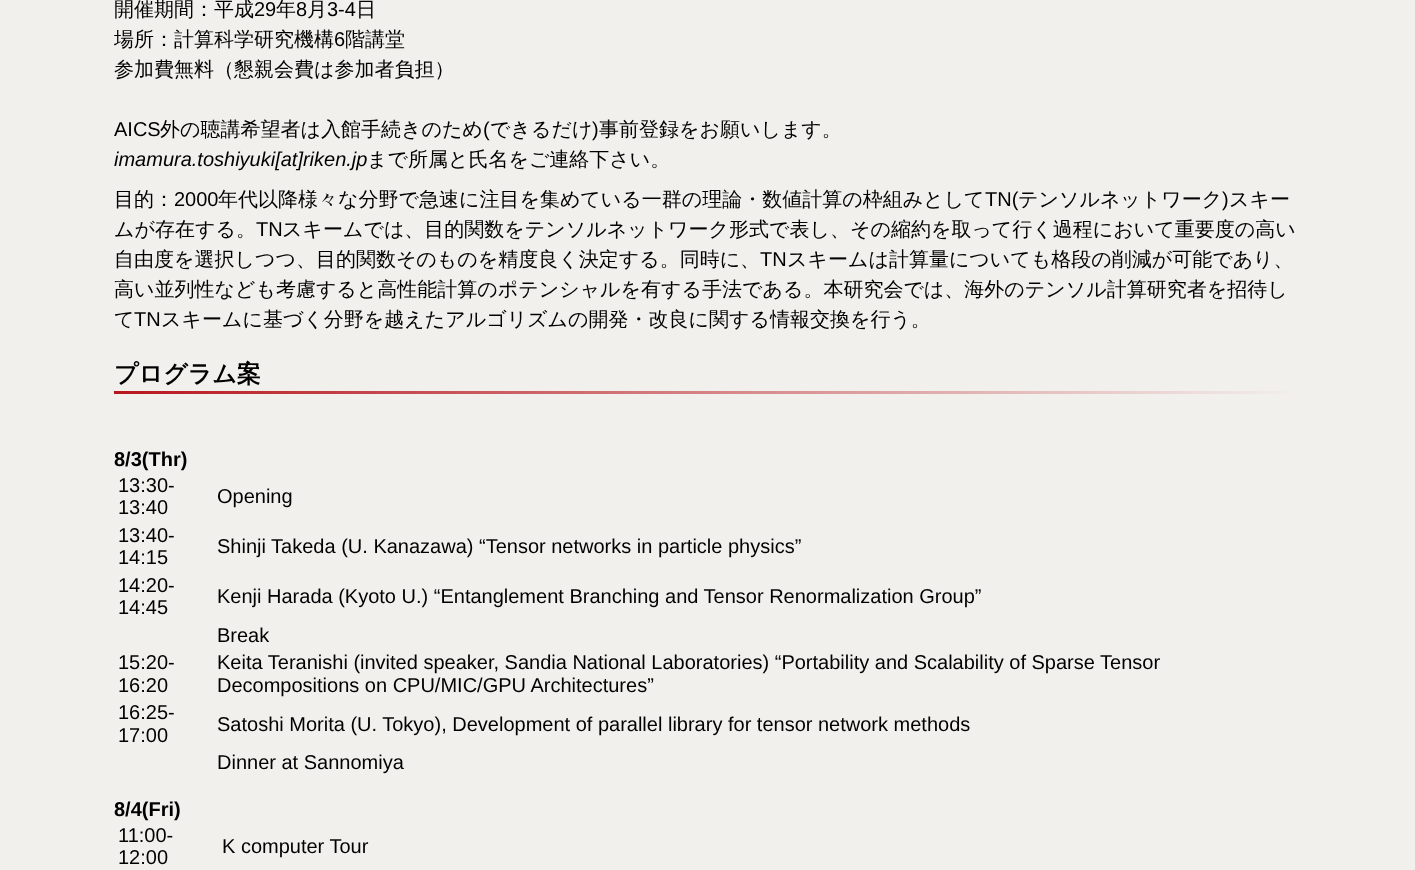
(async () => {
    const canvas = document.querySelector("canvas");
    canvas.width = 1415;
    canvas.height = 870;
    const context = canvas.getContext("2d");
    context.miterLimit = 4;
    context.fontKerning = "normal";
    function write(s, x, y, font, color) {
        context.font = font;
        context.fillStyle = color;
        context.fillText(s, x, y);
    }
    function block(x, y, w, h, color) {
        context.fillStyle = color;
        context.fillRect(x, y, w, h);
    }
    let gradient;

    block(0, 0, 1415, 870, "rgb(242, 240, 237)");
    write("開催期間：平成", 114, 16, "500 20px WenQuanYi Zen Hei", "rgb(0, 0, 0)");
    write("29", 254, 16, "20px Liberation Sans", "rgb(0, 0, 0)");
    write("年", 276, 16, "500 20px WenQuanYi Zen Hei", "rgb(0, 0, 0)");
    write("8", 296, 16, "20px Liberation Sans", "rgb(0, 0, 0)");
    write("月", 307, 16, "500 20px WenQuanYi Zen Hei", "rgb(0, 0, 0)");
    write("3-4", 327, 16, "20px Liberation Sans", "rgb(0, 0, 0)");
    write("日", 356, 16, "500 20px WenQuanYi Zen Hei", "rgb(0, 0, 0)");
    write("場所：計算科学研究機構", 114, 46, "500 20px WenQuanYi Zen Hei", "rgb(0, 0, 0)");
    write("6", 334, 46, "20px Liberation Sans", "rgb(0, 0, 0)");
    write("階講堂", 345, 46, "500 20px WenQuanYi Zen Hei", "rgb(0, 0, 0)");
    write("参加費無料（懇親会費は参加者負担）", 114, 76, "500 20px WenQuanYi Zen Hei", "rgb(0, 0, 0)");
    write("AICS", 114, 136, "20px Liberation Sans", "rgb(0, 0, 0)");
    write("外の聴講希望者は入館手続きのため", 160, 136, "500 20px WenQuanYi Zen Hei", "rgb(0, 0, 0)");
    write("(", 483, 136, "20px Liberation Sans", "rgb(0, 0, 0)");
    write("できるだけ", 490, 136, "500 20px WenQuanYi Zen Hei", "rgb(0, 0, 0)");
    write(")", 592, 136, "20px Liberation Sans", "rgb(0, 0, 0)");
    write("事前登録をお願いします。", 599, 136, "500 20px WenQuanYi Zen Hei", "rgb(0, 0, 0)");
    write("imamura.toshiyuki[at]riken.jp", 114, 166, "italic 20px Liberation Sans", "rgb(0, 0, 0)");
    write("まで所属と氏名をご連絡下さい。", 367, 166, "500 20px WenQuanYi Zen Hei", "rgb(0, 0, 0)");
    write("目的：", 114, 206, "500 20px WenQuanYi Zen Hei", "rgb(0, 0, 0)");
    write("2000", 174, 206, "20px Liberation Sans", "rgb(0, 0, 0)");
    write("年代以降様々な分野で急速に注目を集めている一群の理論・数値計算の枠組みとして", 218, 206, "500 20px WenQuanYi Zen Hei", "rgb(0, 0, 0)");
    write("TN(", 985, 206, "20px Liberation Sans", "rgb(0, 0, 0)");
    write("テンソルネットワーク", 1018, 206, "500 20px WenQuanYi Zen Hei", "rgb(0, 0, 0)");
    write(")", 1222, 206, "20px Liberation Sans", "rgb(0, 0, 0)");
    write("スキー", 1229, 206, "500 20px WenQuanYi Zen Hei", "rgb(0, 0, 0)");
    write("ムが存在する。", 114, 236, "500 20px WenQuanYi Zen Hei", "rgb(0, 0, 0)");
    write("TN", 256, 236, "20px Liberation Sans", "rgb(0, 0, 0)");
    write("スキームでは、目的関数をテンソルネットワーク形式で表し、その縮約を取って行く過程において重要度の高い", 282, 236, "500 20px WenQuanYi Zen Hei", "rgb(0, 0, 0)");
    write("自由度を選択しつつ、目的関数そのものを精度良く決定する。同時に、", 114, 266, "500 20px WenQuanYi Zen Hei", "rgb(0, 0, 0)");
    write("TN", 760, 266, "20px Liberation Sans", "rgb(0, 0, 0)");
    write("スキームは計算量についても格段の削減が可能であり、", 787, 266, "500 20px WenQuanYi Zen Hei", "rgb(0, 0, 0)");
    write("高い並列性なども考慮すると高性能計算のポテンシャルを有する手法である。本研究会では、海外のテンソル計算研究者を招待し", 114, 296, "500 20px WenQuanYi Zen Hei", "rgb(0, 0, 0)");
    write("て", 114, 326, "500 20px WenQuanYi Zen Hei", "rgb(0, 0, 0)");
    write("TN", 134, 326, "20px Liberation Sans", "rgb(0, 0, 0)");
    write("スキームに基づく分野を越えたアルゴリズムの開発・改良に関する情報交換を行う。", 161, 326, "500 20px WenQuanYi Zen Hei", "rgb(0, 0, 0)");
    write("プログラム案", 114, 382, "bold 24px WenQuanYi Zen Hei", "rgb(0, 0, 0)");
    gradient = context.createLinearGradient(114, 393, 1301, 392);
    gradient.addColorStop(0, "rgb(184, 22, 30)");
    gradient.addColorStop(1, "rgb(242, 240, 237)");
    context.fillStyle = gradient;
    context.fillRect(114, 391, 1173, 3);
    write("8/3(Thr)", 114, 466, "bold 20px Liberation Sans", "rgb(0, 0, 0)");
    write("13:30-", 118, 492, "20px Liberation Sans", "rgb(0, 0, 0)");
    write("13:40", 118, 514, "20px Liberation Sans", "rgb(0, 0, 0)");
    write("Opening", 217, 503, "20px Liberation Sans", "rgb(0, 0, 0)");
    write("13:40-", 118, 542, "20px Liberation Sans", "rgb(0, 0, 0)");
    write("14:15", 118, 564, "20px Liberation Sans", "rgb(0, 0, 0)");
    write("Shinji Takeda (U. Kanazawa) “Tensor networks in particle physics”", 217, 553, "20px Liberation Sans", "rgb(0, 0, 0)");
    write("14:20-", 118, 592, "20px Liberation Sans", "rgb(0, 0, 0)");
    write("14:45", 118, 614, "20px Liberation Sans", "rgb(0, 0, 0)");
    write("Kenji Harada (Kyoto U.) “Entanglement Branching and Tensor Renormalization Group”", 217, 603, "20px Liberation Sans", "rgb(0, 0, 0)");
    write("Break", 217, 642, "20px Liberation Sans", "rgb(0, 0, 0)");
    write("15:20-", 118, 669, "20px Liberation Sans", "rgb(0, 0, 0)");
    write("16:20", 118, 692, "20px Liberation Sans", "rgb(0, 0, 0)");
    write("Keita Teranishi (invited speaker, Sandia National Laboratories) “Portability and Scalability of Sparse Tensor", 217, 669, "20px Liberation Sans", "rgb(0, 0, 0)");
    write("Decompositions on CPU/MIC/GPU Architectures”", 217, 692, "20px Liberation Sans", "rgb(0, 0, 0)");
    write("16:25-", 118, 719, "20px Liberation Sans", "rgb(0, 0, 0)");
    write("17:00", 118, 742, "20px Liberation Sans", "rgb(0, 0, 0)");
    write("Satoshi Morita (U. Tokyo), Development of parallel library for tensor network methods", 217, 731, "20px Liberation Sans", "rgb(0, 0, 0)");
    write("Dinner at Sannomiya", 217, 769, "20px Liberation Sans", "rgb(0, 0, 0)");
    write("8/4(Fri)", 114, 816, "bold 20px Liberation Sans", "rgb(0, 0, 0)");
    write("11:00-", 118, 842, "20px Liberation Sans", "rgb(0, 0, 0)");
    write("12:00", 118, 864, "20px Liberation Sans", "rgb(0, 0, 0)");
    write("K computer Tour", 222, 853, "20px Liberation Sans", "rgb(0, 0, 0)");
})();
